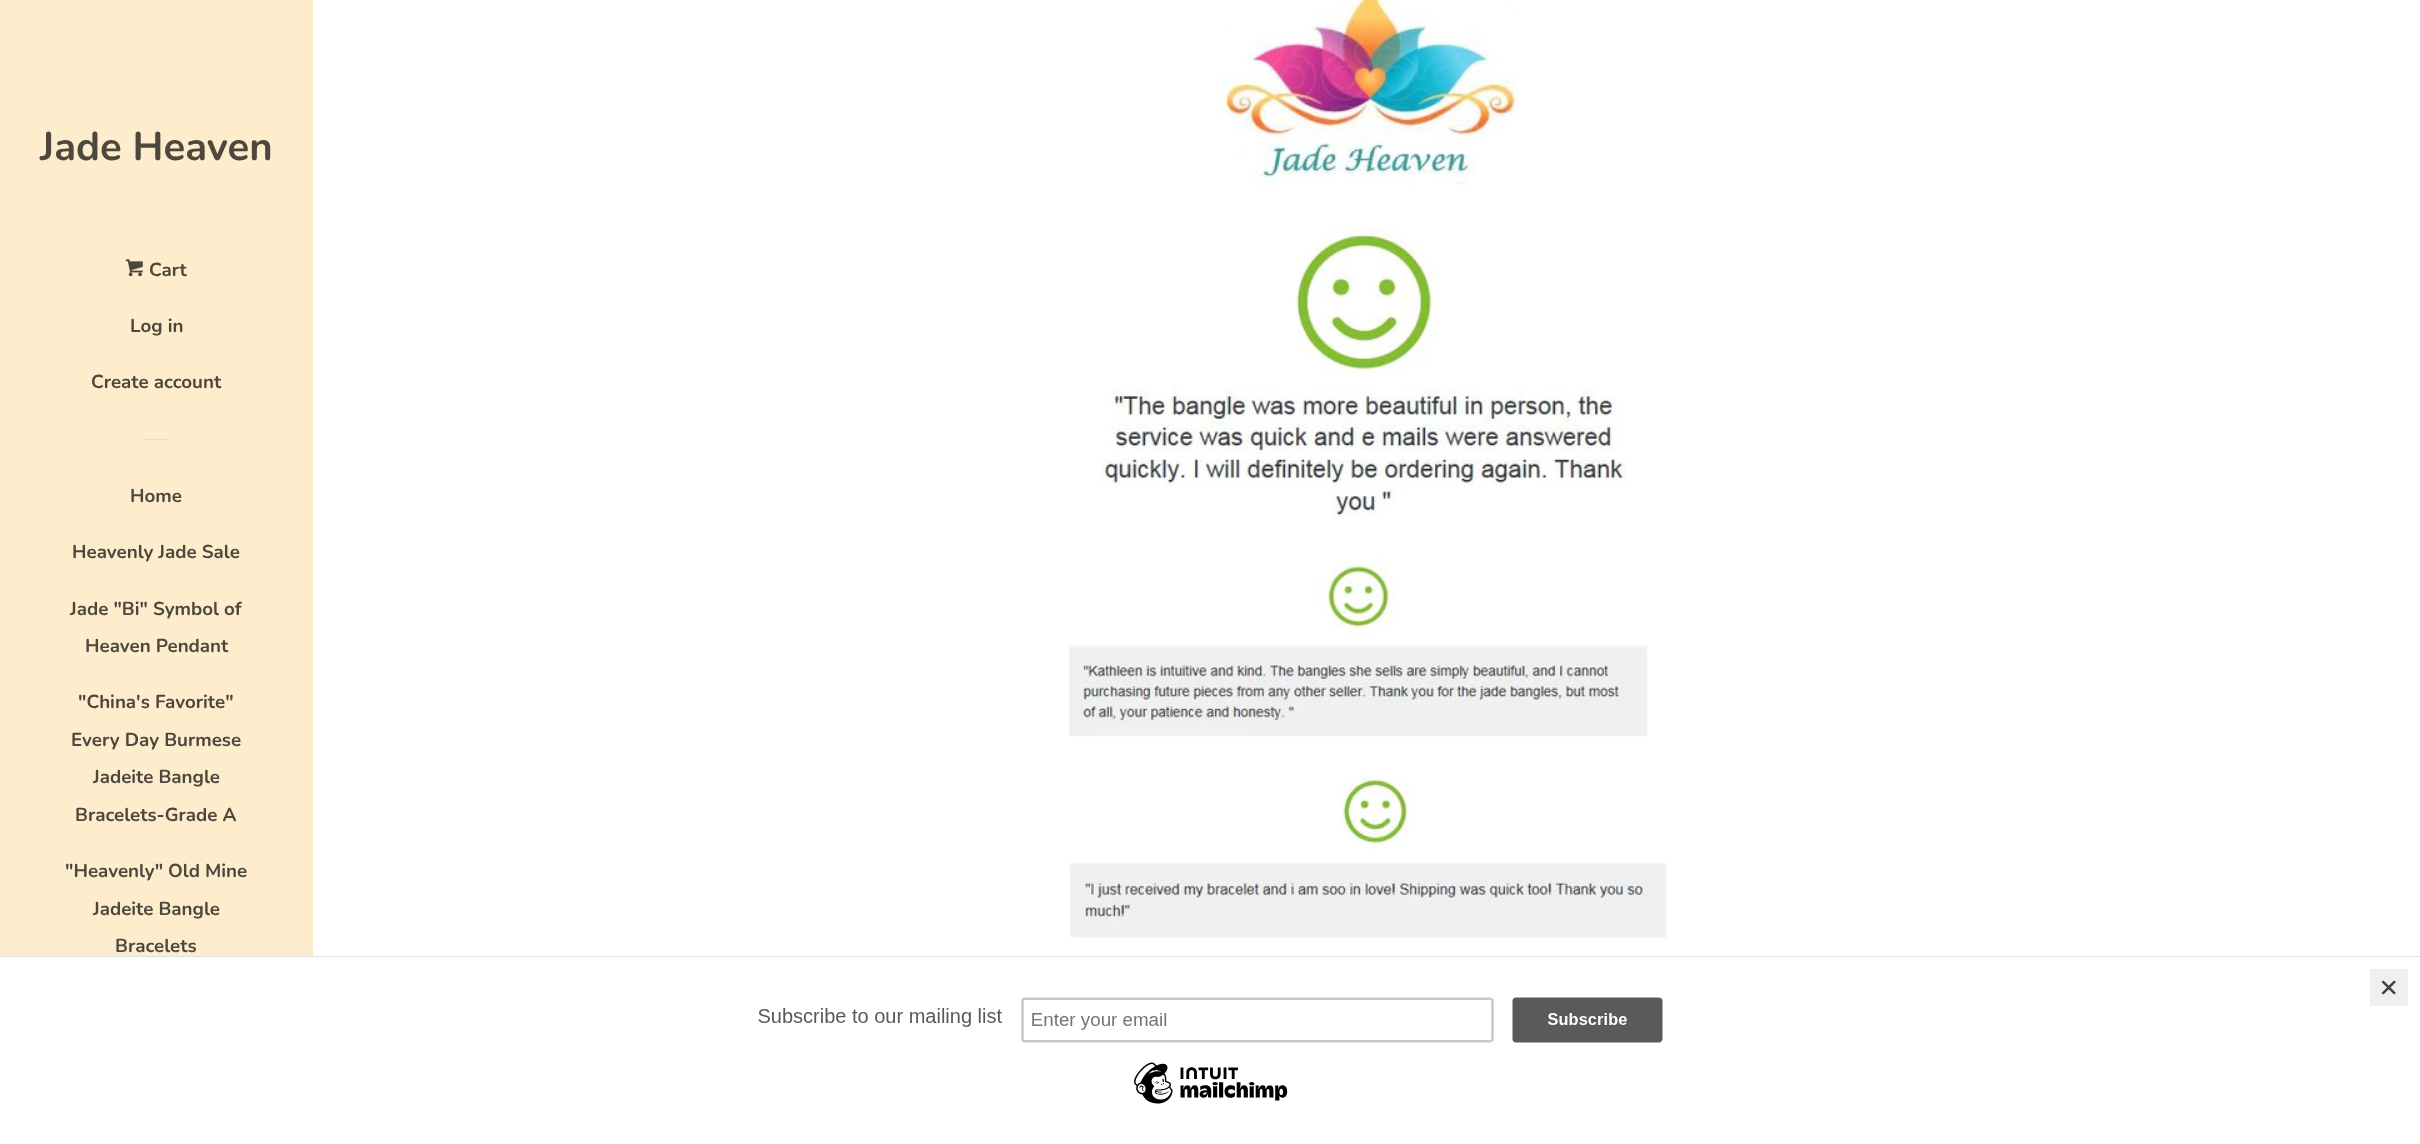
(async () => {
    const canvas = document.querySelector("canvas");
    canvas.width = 2420;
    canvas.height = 1144;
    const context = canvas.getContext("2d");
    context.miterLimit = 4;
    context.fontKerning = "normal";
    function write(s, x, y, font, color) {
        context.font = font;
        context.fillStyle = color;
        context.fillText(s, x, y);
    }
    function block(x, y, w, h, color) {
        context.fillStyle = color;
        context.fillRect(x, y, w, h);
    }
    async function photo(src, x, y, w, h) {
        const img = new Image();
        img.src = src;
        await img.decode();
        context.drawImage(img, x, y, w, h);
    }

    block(0, 0, 2420, 1144, "rgb(255, 255, 255)");
    block(0, 0, 313, 956, "rgb(253, 237, 205)");
    write("Jade Heaven", 40, 160, "200 40px Nunito", "rgb(77, 72, 62)");
    await photo("media/1.png", 125, 259, 18, 18);
    write("Cart", 149, 276, "200 18.75px Nunito", "rgb(77, 72, 62)");
    write("Log in", 130, 332, "200 18.75px Nunito", "rgb(77, 72, 62)");
    write("Create account", 91, 388, "200 18.75px Nunito", "rgb(77, 72, 62)");
    block(144, 439, 25, 1, "rgb(251, 219, 156)");
    write("Home", 130, 502, "200 18.75px Nunito", "rgb(77, 72, 62)");
    write("Heavenly Jade Sale", 72, 558, "200 18.75px Nunito", "rgb(77, 72, 62)");
    write("Jade \"Bi\" Symbol of", 70, 615, "200 18.75px Nunito", "rgb(77, 72, 62)");
    write("Heaven Pendant", 85, 652, "200 18.75px Nunito", "rgb(77, 72, 62)");
    write("\"China's Favorite\"", 78, 708, "200 18.75px Nunito", "rgb(77, 72, 62)");
    write("Every Day Burmese", 71, 746, "200 18.75px Nunito", "rgb(77, 72, 62)");
    write("Jadeite Bangle", 93, 783, "200 18.75px Nunito", "rgb(77, 72, 62)");
    write("Bracelets-Grade A", 75, 821, "200 18.75px Nunito", "rgb(77, 72, 62)");
    write("\"Heavenly\" Old Mine", 65, 877, "200 18.75px Nunito", "rgb(77, 72, 62)");
    write("Jadeite Bangle", 93, 915, "200 18.75px Nunito", "rgb(77, 72, 62)");
    write("Bracelets", 115, 952, "200 18.75px Nunito", "rgb(77, 72, 62)");
    await photo("media/2.png", 1216, 0, 302, 188);
    await photo("media/3.png", 1101, 229, 525, 290);
    await photo("media/4.png", 1068, 556, 580, 181);
    await photo("media/5.png", 1069, 773, 598, 165);
    block(0, 956, 2420, 1, "rgb(224, 224, 224)");
    await photo("media/6.png", 758, 997, 905, 107);
    block(2370, 969, 38, 37, "rgb(239, 239, 239)");
    context.fillStyle = "rgb(65, 65, 65)";
    context.beginPath();
    context.moveTo(2394, 980.5);
    context.lineTo(2396, 982);
    context.lineTo(2383.5, 994.5);
    context.lineTo(2381.5, 993);
    context.closePath();
    context.fill();
    context.beginPath();
    context.moveTo(2381.5, 982);
    context.lineTo(2383.5, 980.5);
    context.lineTo(2396, 993);
    context.lineTo(2394, 994.5);
    context.closePath();
    context.fill();
})();
